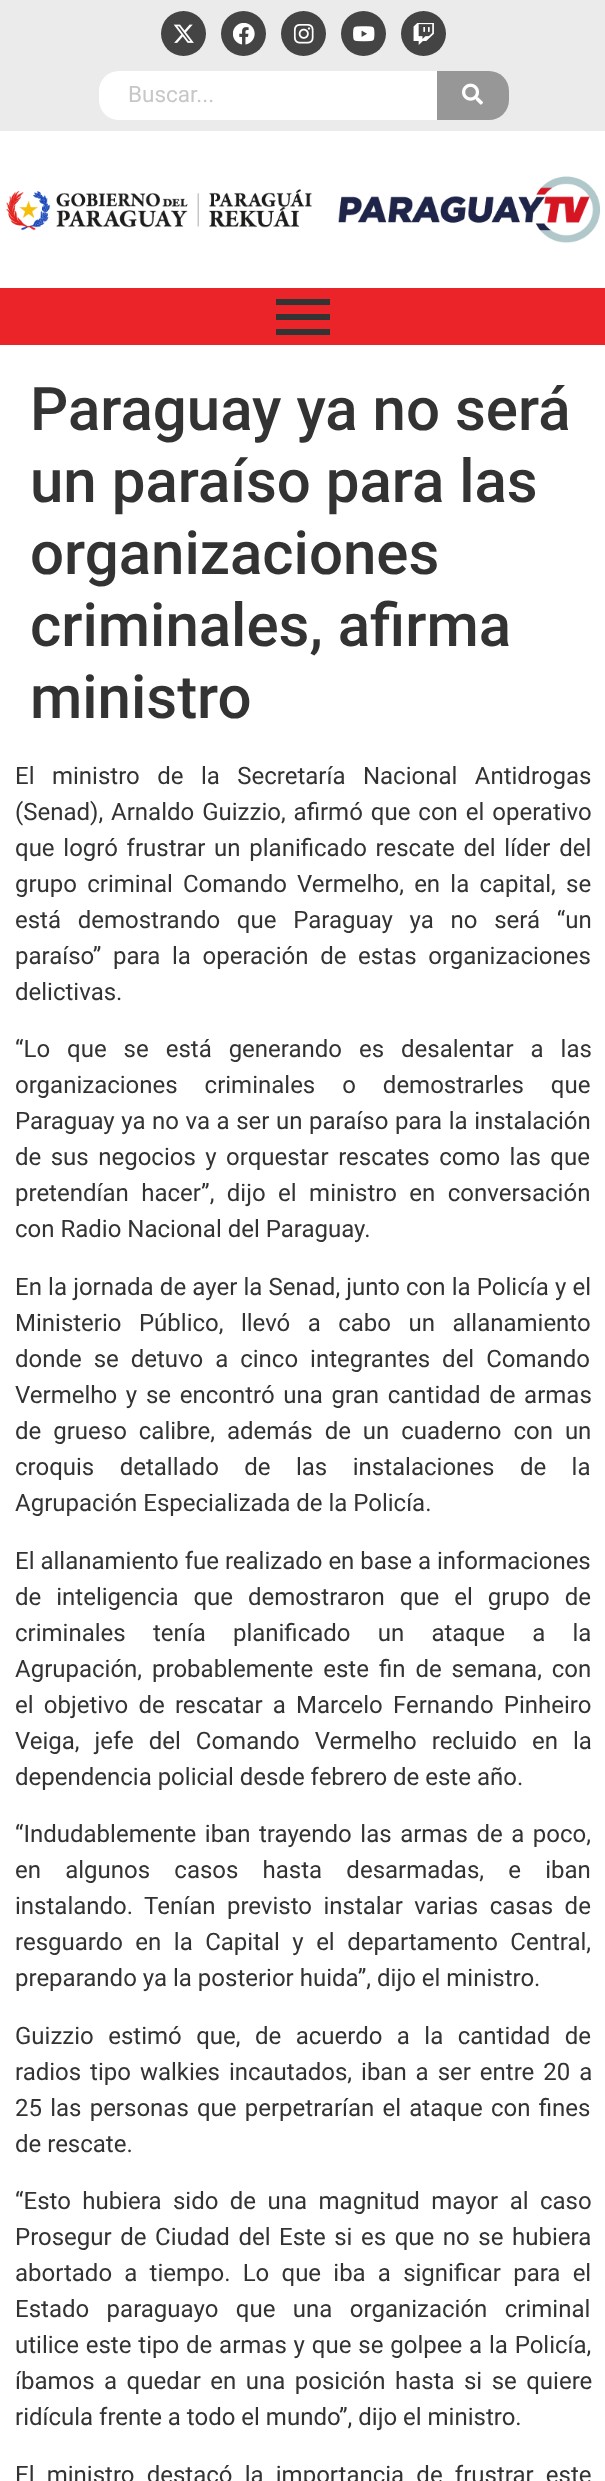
(async () => {
    const canvas = document.querySelector("canvas");
    canvas.width = 605;
    canvas.height = 2481;
    const context = canvas.getContext("2d");
    context.miterLimit = 4;
    context.fontKerning = "normal";
    function write(s, x, y, font, color) {
        context.font = font;
        context.fillStyle = color;
        context.fillText(s, x, y);
    }
    function block(x, y, w, h, color) {
        context.fillStyle = color;
        context.fillRect(x, y, w, h);
    }
    async function photo(src, x, y, w, h) {
        const img = new Image();
        img.src = src;
        await img.decode();
        context.drawImage(img, x, y, w, h);
    }

    block(0, 0, 605, 2481, "rgb(255, 255, 255)");
    block(0, 0, 605, 131, "rgb(235, 235, 235)");
    context.fillStyle = "rgb(68, 68, 68)";
    context.beginPath();
    context.arc(183.5, 33.5, 22.5, 0, Math.PI * 2);
    context.fill();
    await photo("media/1.png", 173, 24, 21, 19);
    context.beginPath();
    context.arc(243.5, 33.5, 22.5, 0, Math.PI * 2);
    context.fill();
    await photo("media/2.png", 233, 23, 22, 22);
    context.beginPath();
    context.arc(303.5, 33.5, 22.5, 0, Math.PI * 2);
    context.fill();
    await photo("media/3.png", 293, 24, 21, 20);
    context.beginPath();
    context.arc(363.5, 33.5, 22.5, 0, Math.PI * 2);
    context.fill();
    await photo("media/4.png", 353, 26, 22, 16);
    context.beginPath();
    context.arc(423.5, 33.5, 22.5, 0, Math.PI * 2);
    context.fill();
    await photo("media/5.png", 413, 23, 21, 22);
    context.fillStyle = "rgb(255, 255, 255)";
    context.beginPath();
    context.roundRect(99, 71, 338, 49, [20, 0, 0, 20]);
    context.fill();
    write("Buscar...", 128, 102, "22.5px Roboto", "rgb(199, 199, 199)");
    context.fillStyle = "rgb(151, 151, 151)";
    context.beginPath();
    context.roundRect(437, 71, 72, 49, [0, 20, 20, 0]);
    context.fill();
    await photo("media/6.png", 462, 83, 21, 22);
    await photo("media/7.png", 6, 176, 594, 67);
    block(0, 288, 605, 57, "rgb(234, 36, 40)");
    block(276, 299, 54, 6, "rgb(51, 51, 51)");
    block(276, 314, 54, 6, "rgb(51, 51, 51)");
    block(276, 329, 54, 6, "rgb(51, 51, 51)");
    write("Paraguay ya no será", 30, 430, "500 60px Roboto", "rgb(51, 51, 51)");
    write("un paraíso para las", 30, 502, "500 60px Roboto", "rgb(51, 51, 51)");
    write("organizaciones", 30, 574, "500 60px Roboto", "rgb(51, 51, 51)");
    write("criminales, afirma", 30, 646, "500 60px Roboto", "rgb(51, 51, 51)");
    write("ministro", 30, 718, "500 60px Roboto", "rgb(51, 51, 51)");
    context.wordSpacing = "11.5px";
    write("El ministro de la Secretaría Nacional Antidrogas", 15, 784, "24px Roboto", "rgb(51, 51, 51)");
    context.wordSpacing = "2px";
    write("(Senad), Arnaldo Guizzio, afirmó que con el operativo", 15, 820, "24px Roboto", "rgb(51, 51, 51)");
    context.wordSpacing = "2.75px";
    write("que logró frustrar un planificado rescate del líder del", 15, 856, "24px Roboto", "rgb(51, 51, 51)");
    context.wordSpacing = "4.25px";
    write("grupo criminal Comando Vermelho, en la capital, se", 15, 892, "24px Roboto", "rgb(51, 51, 51)");
    context.wordSpacing = "10.75px";
    write("está demostrando que Paraguay ya no será “un", 15, 928, "24px Roboto", "rgb(51, 51, 51)");
    context.wordSpacing = "5.75px";
    write("paraíso” para la operación de estas organizaciones", 15, 964, "24px Roboto", "rgb(51, 51, 51)");
    context.wordSpacing = "0px";
    write("delictivas.", 15, 1000, "24px Roboto", "rgb(51, 51, 51)");
    context.wordSpacing = "11px";
    write("“Lo que se está generando es desalentar a las", 15, 1057, "24px Roboto", "rgb(51, 51, 51)");
    context.wordSpacing = "21px";
    write("organizaciones criminales o demostrarles que", 15, 1093, "24px Roboto", "rgb(51, 51, 51)");
    context.wordSpacing = "0.6px";
    write("Paraguay ya no va a ser un paraíso para la instalación", 15, 1129, "24px Roboto", "rgb(51, 51, 51)");
    context.wordSpacing = "3.5px";
    write("de sus negocios y orquestar rescates como las que", 15, 1165, "24px Roboto", "rgb(51, 51, 51)");
    context.wordSpacing = "6.5px";
    write("pretendían hacer”, dijo el ministro en conversación", 15, 1201, "24px Roboto", "rgb(51, 51, 51)");
    context.wordSpacing = "0px";
    write("con Radio Nacional del Paraguay.", 15, 1237, "24px Roboto", "rgb(51, 51, 51)");
    context.wordSpacing = "0.25px";
    write("En la jornada de ayer la Senad, junto con la Policía y el", 15, 1295, "24px Roboto", "rgb(51, 51, 51)");
    context.wordSpacing = "11.5px";
    write("Ministerio Público, llevó a cabo un allanamiento", 15, 1331, "24px Roboto", "rgb(51, 51, 51)");
    context.wordSpacing = "6px";
    write("donde se detuvo a cinco integrantes del Comando", 15, 1367, "24px Roboto", "rgb(51, 51, 51)");
    context.wordSpacing = "2.75px";
    write("Vermelho y se encontró una gran cantidad de armas", 15, 1403, "24px Roboto", "rgb(51, 51, 51)");
    context.wordSpacing = "6px";
    write("de grueso calibre, además de un cuaderno con un", 15, 1439, "24px Roboto", "rgb(51, 51, 51)");
    context.wordSpacing = "19.5px";
    write("croquis detallado de las instalaciones de la", 15, 1475, "24px Roboto", "rgb(51, 51, 51)");
    context.wordSpacing = "0px";
    write("Agrupación Especializada de la Policía.", 15, 1511, "24px Roboto", "rgb(51, 51, 51)");
    write("El allanamiento fue realizado en base a informaciones", 15, 1569, "24px Roboto", "rgb(51, 51, 51)");
    context.wordSpacing = "9px";
    write("de inteligencia que demostraron que el grupo de", 15, 1605, "24px Roboto", "rgb(51, 51, 51)");
    context.wordSpacing = "21.25px";
    write("criminales tenía planificado un ataque a la", 15, 1641, "24px Roboto", "rgb(51, 51, 51)");
    context.wordSpacing = "4px";
    write("Agrupación, probablemente este fin de semana, con", 15, 1677, "24px Roboto", "rgb(51, 51, 51)");
    context.wordSpacing = "4.25px";
    write("el objetivo de rescatar a Marcelo Fernando Pinheiro", 15, 1713, "24px Roboto", "rgb(51, 51, 51)");
    context.wordSpacing = "9px";
    write("Veiga, jefe del Comando Vermelho recluido en la", 15, 1749, "24px Roboto", "rgb(51, 51, 51)");
    context.wordSpacing = "0px";
    write("dependencia policial desde febrero de este año.", 15, 1785, "24px Roboto", "rgb(51, 51, 51)");
    context.wordSpacing = "2.6px";
    write("“Indudablemente iban trayendo las armas de a poco,", 15, 1842, "24px Roboto", "rgb(51, 51, 51)");
    context.wordSpacing = "18.25px";
    write("en algunos casos hasta desarmadas, e iban", 15, 1878, "24px Roboto", "rgb(51, 51, 51)");
    context.wordSpacing = "5.5px";
    write("instalando. Tenían previsto instalar varias casas de", 15, 1914, "24px Roboto", "rgb(51, 51, 51)");
    context.wordSpacing = "6.5px";
    write("resguardo en la Capital y el departamento Central,", 15, 1950, "24px Roboto", "rgb(51, 51, 51)");
    context.wordSpacing = "0px";
    write("preparando ya la posterior huida”, dijo el ministro.", 15, 1986, "24px Roboto", "rgb(51, 51, 51)");
    context.wordSpacing = "8.5px";
    write("Guizzio estimó que, de acuerdo a la cantidad de", 15, 2044, "24px Roboto", "rgb(51, 51, 51)");
    context.wordSpacing = "3px";
    write("radios tipo walkies incautados, iban a ser entre 20 a", 15, 2080, "24px Roboto", "rgb(51, 51, 51)");
    context.wordSpacing = "2.25px";
    write("25 las personas que perpetrarían el ataque con fines", 15, 2116, "24px Roboto", "rgb(51, 51, 51)");
    context.wordSpacing = "0px";
    write("de rescate.", 15, 2152, "24px Roboto", "rgb(51, 51, 51)");
    context.wordSpacing = "5.5px";
    write("“Esto hubiera sido de una magnitud mayor al caso", 15, 2209, "24px Roboto", "rgb(51, 51, 51)");
    context.wordSpacing = "2.6px";
    write("Prosegur de Ciudad del Este si es que no se hubiera", 15, 2245, "24px Roboto", "rgb(51, 51, 51)");
    context.wordSpacing = "6.25px";
    write("abortado a tiempo. Lo que iba a significar para el", 15, 2281, "24px Roboto", "rgb(51, 51, 51)");
    context.wordSpacing = "11.5px";
    write("Estado paraguayo que una organización criminal", 15, 2317, "24px Roboto", "rgb(51, 51, 51)");
    context.wordSpacing = "0.9px";
    write("utilice este tipo de armas y que se golpee a la Policía,", 15, 2353, "24px Roboto", "rgb(51, 51, 51)");
    context.wordSpacing = "3.5px";
    write("íbamos a quedar en una posición hasta si se quiere", 15, 2389, "24px Roboto", "rgb(51, 51, 51)");
    context.wordSpacing = "0px";
    write("ridícula frente a todo el mundo”, dijo el ministro.", 15, 2425, "24px Roboto", "rgb(51, 51, 51)");
    context.wordSpacing = "6.25px";
    write("El ministro destacó la importancia de frustrar este", 15, 2483, "24px Roboto", "rgb(51, 51, 51)");
})();
